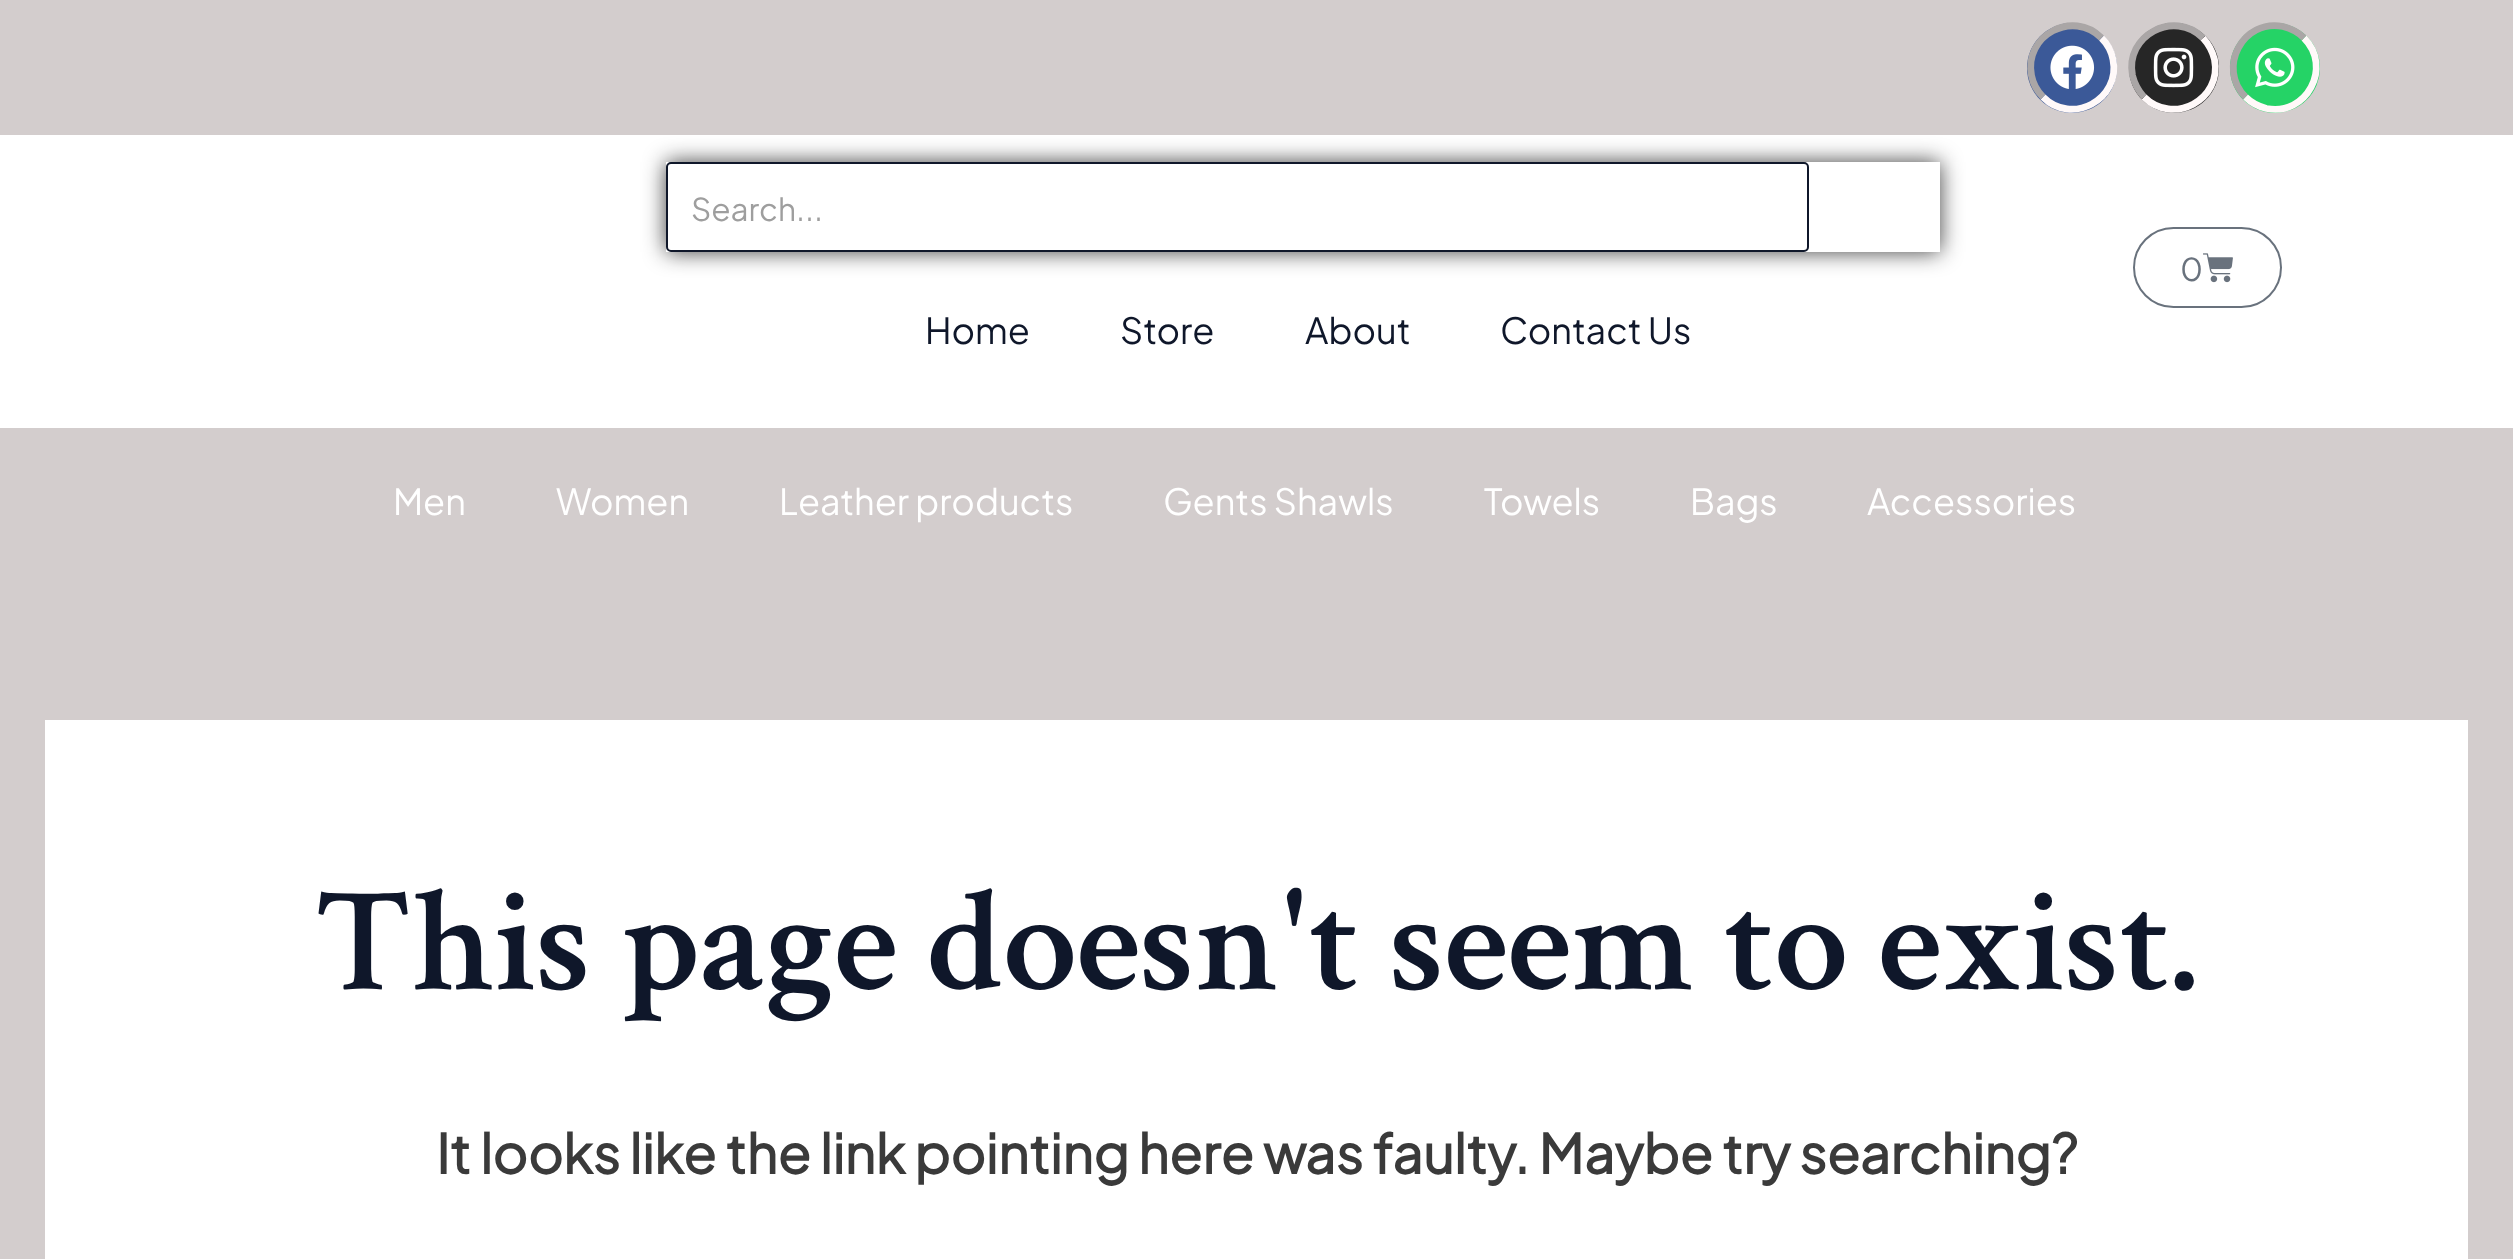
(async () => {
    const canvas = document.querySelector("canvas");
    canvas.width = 2513;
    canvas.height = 1259;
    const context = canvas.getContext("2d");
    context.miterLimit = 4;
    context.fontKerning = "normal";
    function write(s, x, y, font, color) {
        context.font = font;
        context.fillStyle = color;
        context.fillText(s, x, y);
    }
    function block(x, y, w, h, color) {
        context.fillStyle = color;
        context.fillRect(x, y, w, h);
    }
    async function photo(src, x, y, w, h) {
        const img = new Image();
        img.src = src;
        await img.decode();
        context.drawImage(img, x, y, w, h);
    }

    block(0, 0, 2513, 1259, "rgb(211, 205, 205)");
    context.fillStyle = "rgb(59, 89, 152)";
    context.beginPath();
    context.arc(2072, 68, 45, 0, Math.PI * 2);
    context.fill();
    context.beginPath();
    context.moveTo(2101.5, 38);
    context.bezierCurveTo(2107.5, 44, 2111.5, 51.5, 2113, 59.5);
    context.bezierCurveTo(2121, 99.5, 2071.5, 126, 2043, 97);
    context.strokeStyle = "rgb(255, 249, 249)";
    context.lineWidth = 6.8;
    context.stroke();
    context.beginPath();
    context.moveTo(2043, 97);
    context.bezierCurveTo(2037, 91, 2033, 83.5, 2031.5, 75.5);
    context.bezierCurveTo(2023.5, 35.5, 2073, 9, 2101.5, 38);
    context.strokeStyle = "rgb(170, 166, 166)";
    context.stroke();
    await photo("media/1.png", 2050, 45, 45, 44);
    context.fillStyle = "rgb(38, 38, 38)";
    context.beginPath();
    context.arc(2174, 68, 45, 0, Math.PI * 2);
    context.fill();
    context.beginPath();
    context.moveTo(2203, 38);
    context.bezierCurveTo(2208.5, 44, 2212.5, 51.5, 2214.5, 59.5);
    context.bezierCurveTo(2222.5, 99.5, 2173, 126, 2144, 97);
    context.strokeStyle = "rgb(255, 249, 249)";
    context.stroke();
    context.beginPath();
    context.moveTo(2144, 97);
    context.bezierCurveTo(2138.5, 91, 2134.5, 83.5, 2132.5, 75.5);
    context.bezierCurveTo(2124.5, 35.5, 2174, 9, 2203, 38);
    context.strokeStyle = "rgb(170, 166, 166)";
    context.stroke();
    await photo("media/2.png", 2153, 47, 41, 41);
    context.fillStyle = "rgb(37, 211, 102)";
    context.beginPath();
    context.arc(2275, 68, 45, 0, Math.PI * 2);
    context.fill();
    context.beginPath();
    context.moveTo(2304, 38);
    context.bezierCurveTo(2333, 67, 2306.5, 116.5, 2266.5, 108.5);
    context.bezierCurveTo(2258.5, 106.5, 2251, 102.5, 2245.5, 97);
    context.strokeStyle = "rgb(255, 249, 249)";
    context.stroke();
    context.beginPath();
    context.moveTo(2245.5, 97);
    context.bezierCurveTo(2216.5, 68, 2243, 18.5, 2283, 26.5);
    context.bezierCurveTo(2291, 28.5, 2298.5, 32.5, 2304, 38);
    context.strokeStyle = "rgb(170, 166, 166)";
    context.stroke();
    await photo("media/3.png", 2255, 47, 40, 41);
    block(0, 135, 2513, 293, "rgb(255, 255, 255)");
    context.save();
    context.beginPath();
    context.moveTo(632, 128);
    context.lineTo(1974, 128);
    context.lineTo(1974, 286);
    context.lineTo(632, 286);
    context.closePath();
    context.moveTo(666, 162);
    context.lineTo(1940, 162);
    context.lineTo(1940, 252);
    context.lineTo(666, 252);
    context.closePath();
    context.clip("evenodd");
    context.fillStyle = "rgba(14, 14, 14, 0.8)";
    context.filter = "blur(11px)";
    context.beginPath();
    context.rect(666, 162, 1274, 90);
    context.fill();
    context.filter = "none";
    context.restore();
    context.beginPath();
    context.roundRect(667, 163, 1141, 88, 4);
    context.strokeStyle = "rgb(15, 23, 42)";
    context.lineWidth = 2;
    context.stroke();
    write("Search...", 691, 221, "31.5px Plus Jakarta Sans", "rgb(158, 158, 158)");
    write("Home", 925, 344, "36px Plus Jakarta Sans", "rgb(15, 23, 42)");
    write("Store", 1120, 344, "36px Plus Jakarta Sans", "rgb(15, 23, 42)");
    write("About", 1305, 344, "36px Plus Jakarta Sans", "rgb(15, 23, 42)");
    write("Contact Us", 1500, 344, "36px Plus Jakarta Sans", "rgb(15, 23, 42)");
    context.beginPath();
    context.roundRect(2134, 228, 147, 79, 39.5);
    context.strokeStyle = "rgb(105, 114, 125)";
    context.stroke();
    write("0", 2180, 281, "31.5px Plus Jakarta Sans", "rgb(105, 114, 125)");
    await photo("media/4.png", 2203, 253, 30, 30);
    write("Men", 393, 515, "36px Plus Jakarta Sans", "rgb(255, 255, 255)");
    write("Women", 556, 515, "36px Plus Jakarta Sans", "rgb(255, 255, 255)");
    write("Leather products", 779, 515, "36px Plus Jakarta Sans", "rgb(255, 255, 255)");
    write("Gents Shawls", 1163, 515, "36px Plus Jakarta Sans", "rgb(255, 255, 255)");
    write("Towels", 1484, 515, "36px Plus Jakarta Sans", "rgb(255, 255, 255)");
    write("Bags", 1690, 515, "36px Plus Jakarta Sans", "rgb(255, 255, 255)");
    write("Accessories", 1867, 515, "36px Plus Jakarta Sans", "rgb(255, 255, 255)");
    block(45, 720, 2423, 539, "rgb(255, 255, 255)");
    write("This page doesn't seem to exist.", 315, 989, "600 148.5px Crimson Text", "rgb(15, 23, 42)");
    write("It looks like the link pointing here was faulty. Maybe try searching?", 436, 1174, "bold 54px Plus Jakarta Sans", "rgb(58, 58, 58)");
})();
